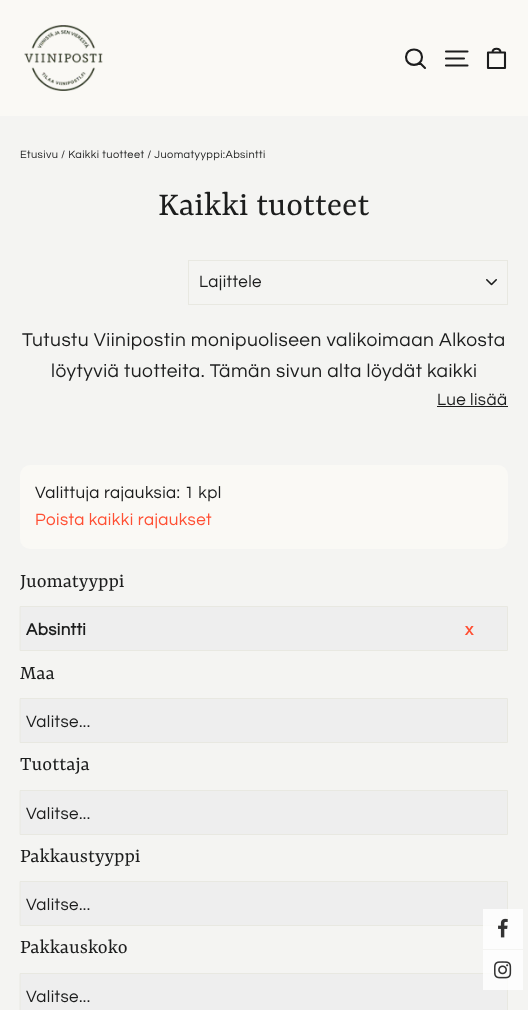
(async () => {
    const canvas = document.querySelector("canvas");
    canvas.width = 528;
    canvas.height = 1010;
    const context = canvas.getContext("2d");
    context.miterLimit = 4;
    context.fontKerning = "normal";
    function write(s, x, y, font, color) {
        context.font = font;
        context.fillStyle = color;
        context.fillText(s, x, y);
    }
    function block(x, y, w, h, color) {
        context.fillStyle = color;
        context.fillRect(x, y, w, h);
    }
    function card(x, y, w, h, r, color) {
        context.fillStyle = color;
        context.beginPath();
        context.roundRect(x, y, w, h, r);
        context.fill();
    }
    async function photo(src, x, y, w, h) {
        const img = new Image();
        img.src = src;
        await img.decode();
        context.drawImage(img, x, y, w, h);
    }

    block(0, 0, 528, 1010, "rgb(244, 244, 242)");
    block(0, 0, 528, 116, "rgb(250, 249, 245)");
    await photo("media/1.png", 24, 25, 79, 66);
    context.beginPath();
    context.moveTo(422, 57);
    context.bezierCurveTo(422, 67.5, 406, 67.5, 406, 57);
    context.bezierCurveTo(406, 47, 422, 47, 422, 57);
    context.closePath();
    context.moveTo(425, 68);
    context.lineTo(419.5, 62.5);
    context.strokeStyle = "rgb(28, 29, 29)";
    context.lineWidth = 2.1;
    context.lineCap = "round";
    context.lineJoin = "round";
    context.stroke();
    context.beginPath();
    context.moveTo(446, 51.5);
    context.lineTo(467.5, 51.5);
    context.moveTo(446, 58.5);
    context.lineTo(464, 58.5);
    context.moveTo(446, 65.5);
    context.lineTo(467.5, 65.5);
    context.moveTo(488, 52.5);
    context.lineTo(505, 52.5);
    context.lineTo(505, 68);
    context.lineTo(488, 68);
    context.closePath();
    context.moveTo(492.5, 52.5);
    context.bezierCurveTo(492.5, 47.5, 500.5, 47.5, 500.5, 52.5);
    context.stroke();
    context.letterSpacing = "0.4px";
    write("Etusivu / Kaikki tuotteet / Juomatyyppi:Absintti", 20, 158, "11px Questrial", "rgb(28, 29, 29)");
    context.letterSpacing = "0px";
    write("Kaikki tuotteet", 158, 215, "35.75px Yrsa", "rgb(28, 29, 29)");
    await photo("media/2.png", 486, 279, 11, 7);
    context.strokeStyle = "rgb(232, 232, 225)";
    context.lineWidth = 1;
    context.lineJoin = "miter";
    context.strokeRect(188.5, 260.5, 319, 44);
    context.letterSpacing = "0.4px";
    write("Lajittele", 199, 287, "17px Questrial", "rgb(28, 29, 29)");
    context.letterSpacing = "0.48px";
    write("Tutustu Viinipostin monipuoliseen valikoimaan Alkosta", 22, 346, "19.2px Questrial", "rgb(28, 29, 29)");
    write("löytyviä tuotteita. Tämän sivun alta löydät kaikki", 51, 377, "19.2px Questrial", "rgb(28, 29, 29)");
    context.letterSpacing = "0.4px";
    write("Lue lisää", 437, 405, "17px Questrial", "rgb(28, 29, 29)");
    block(437, 406, 71, 1, "rgb(28, 29, 29)");
    card(20, 465, 488, 84, 10, "rgb(250, 249, 245)");
    write("Valittuja rajauksia: 1 kpl", 35, 498, "17px Questrial", "rgb(28, 29, 29)");
    write("Poista kaikki rajaukset", 35, 525, "17px Questrial", "rgb(255, 79, 51)");
    context.letterSpacing = "0px";
    write("Juomatyyppi", 20, 587, "21px Yrsa", "rgb(28, 29, 29)");
    context.fillStyle = "rgb(238, 238, 238)";
    context.beginPath();
    context.rect(20.5, 606.5, 487, 44);
    context.fill();
    context.stroke();
    context.letterSpacing = "0.4px";
    write("Absintti", 26, 635, "bold 17px Questrial", "rgb(28, 29, 29)");
    write("x", 465, 635, "bold 17px Questrial", "rgb(255, 79, 51)");
    context.letterSpacing = "0px";
    write("Maa", 20, 679, "21px Yrsa", "rgb(28, 29, 29)");
    context.fillStyle = "rgb(238, 238, 238)";
    context.beginPath();
    context.rect(20.5, 698.5, 487, 44);
    context.fill();
    context.stroke();
    context.letterSpacing = "0.4px";
    write("Valitse...", 26, 727, "17px Questrial", "rgb(28, 29, 29)");
    context.letterSpacing = "0px";
    write("Tuottaja", 20, 770, "21px Yrsa", "rgb(28, 29, 29)");
    context.fillStyle = "rgb(238, 238, 238)";
    context.beginPath();
    context.rect(20.5, 790.5, 487, 44);
    context.fill();
    context.stroke();
    context.letterSpacing = "0.4px";
    write("Valitse...", 26, 819, "17px Questrial", "rgb(28, 29, 29)");
    context.letterSpacing = "0px";
    write("Pakkaustyyppi", 20, 862, "21px Yrsa", "rgb(28, 29, 29)");
    context.fillStyle = "rgb(238, 238, 238)";
    context.beginPath();
    context.rect(20.5, 881.5, 487, 44);
    context.fill();
    context.stroke();
    context.letterSpacing = "0.4px";
    write("Valitse...", 26, 910, "17px Questrial", "rgb(28, 29, 29)");
    context.letterSpacing = "0px";
    write("Pakkauskoko", 20, 953, "21px Yrsa", "rgb(28, 29, 29)");
    context.fillStyle = "rgb(238, 238, 238)";
    context.beginPath();
    context.rect(20.5, 973.5, 487, 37);
    context.fill();
    context.stroke();
    context.letterSpacing = "0.4px";
    write("Valitse...", 26, 1002, "17px Questrial", "rgb(28, 29, 29)");
    block(483, 909, 40, 40, "rgba(255, 255, 255, 0.8)");
    await photo("media/3.png", 498, 918, 10, 20);
    block(483, 950, 40, 40, "rgba(255, 255, 255, 0.8)");
    await photo("media/4.png", 494, 961, 18, 18);
})();
